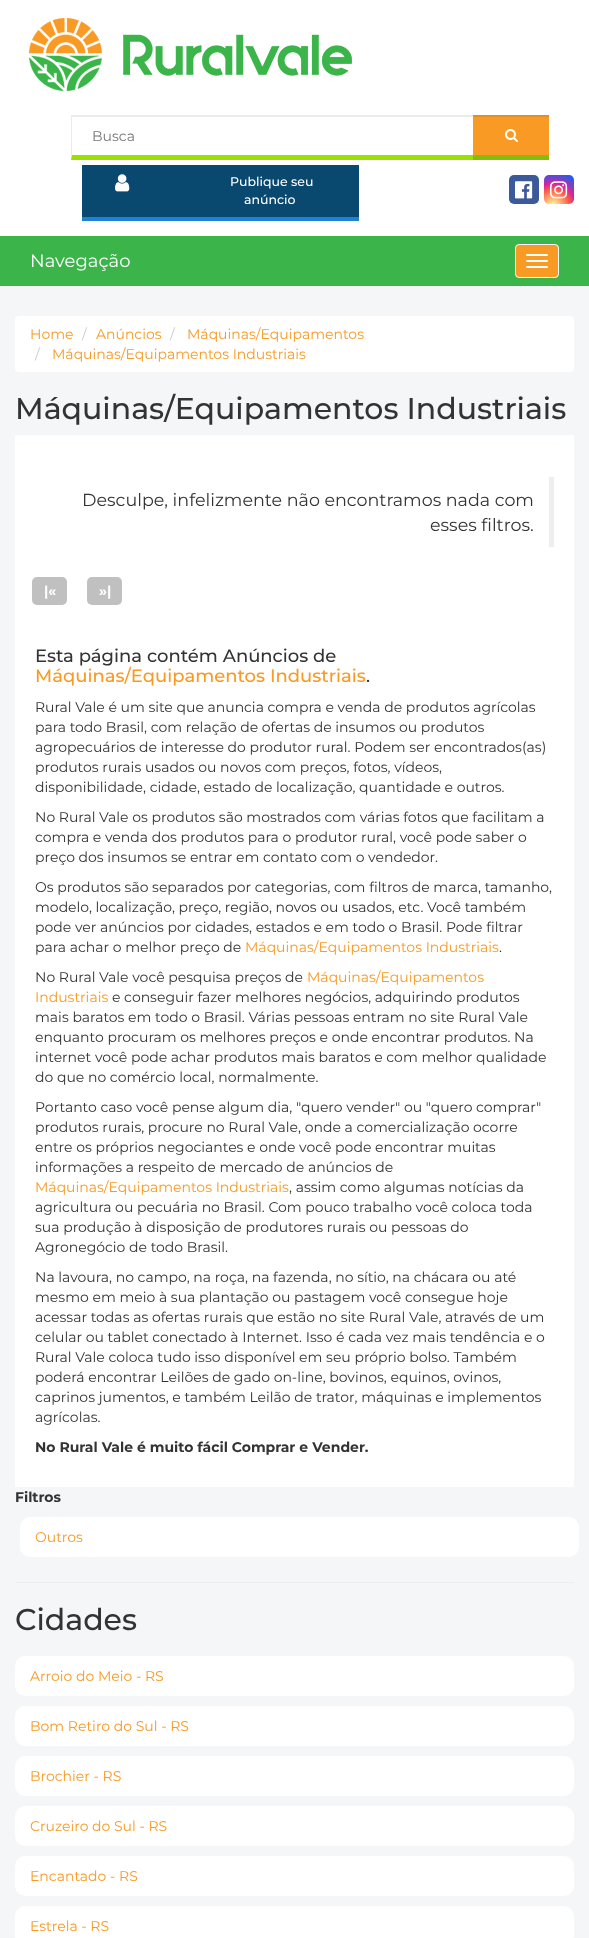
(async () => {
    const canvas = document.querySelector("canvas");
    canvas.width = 589;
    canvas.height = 1938;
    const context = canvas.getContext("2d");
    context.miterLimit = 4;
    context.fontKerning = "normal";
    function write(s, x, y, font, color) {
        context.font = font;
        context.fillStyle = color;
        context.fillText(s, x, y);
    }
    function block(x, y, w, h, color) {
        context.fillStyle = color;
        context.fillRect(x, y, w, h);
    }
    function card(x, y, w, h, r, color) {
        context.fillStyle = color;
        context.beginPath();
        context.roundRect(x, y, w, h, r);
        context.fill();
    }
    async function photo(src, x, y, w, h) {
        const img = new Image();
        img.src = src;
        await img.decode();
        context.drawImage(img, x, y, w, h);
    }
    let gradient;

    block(0, 0, 589, 1938, "rgb(244, 246, 247)");
    block(0, 0, 589, 236, "rgb(255, 255, 255)");
    await photo("media/1.png", 29, 18, 323, 73);
    context.fillStyle = "rgb(235, 235, 235)";
    context.beginPath();
    context.moveTo(71, 115);
    context.lineTo(473, 115);
    context.lineTo(473, 117);
    context.lineTo(72, 117);
    context.closePath();
    context.fill();
    context.fillStyle = "rgb(154, 225, 2)";
    context.beginPath();
    context.moveTo(473, 160);
    context.lineTo(71, 160);
    context.lineTo(72, 155);
    context.lineTo(473, 155);
    context.closePath();
    context.fill();
    context.fillStyle = "rgba(0, 0, 0, 0.08)";
    context.beginPath();
    context.moveTo(71, 160);
    context.lineTo(71, 115);
    context.lineTo(72, 117);
    context.lineTo(72, 155);
    context.closePath();
    context.fill();
    write("Busca", 92, 141, "14px Montserrat", "rgb(117, 117, 117)");
    block(473, 117, 76, 38, "rgb(248, 154, 35)");
    block(473, 115, 76, 2, "rgb(228, 142, 32)");
    block(473, 155, 76, 5, "rgb(132, 190, 8)");
    await photo("media/2.png", 505, 129, 13, 13);
    block(82, 165, 277, 52, "rgb(9, 73, 112)");
    block(82, 217, 277, 4, "rgb(30, 129, 213)");
    await photo("media/3.png", 115, 174, 15, 18);
    write("Publique seu", 230, 186, "500 12.5px Montserrat", "rgb(255, 255, 255)");
    write("anúncio", 244, 204, "500 12.5px Montserrat", "rgb(255, 255, 255)");
    card(509, 175, 30, 29, 5, "rgb(60, 90, 153)");
    await photo("media/4.png", 515, 181, 18, 18);
    gradient = context.createRadialGradient(553, 206, 0, 553, 206, 37);
    gradient.addColorStop(0, "rgb(253, 244, 151)");
    gradient.addColorStop(0.05, "rgb(253, 244, 151)");
    gradient.addColorStop(0.45, "rgb(253, 89, 73)");
    gradient.addColorStop(0.6, "rgb(214, 36, 159)");
    gradient.addColorStop(0.9, "rgb(40, 90, 235)");
    context.fillStyle = gradient;
    context.beginPath();
    context.roundRect(544, 175, 30, 29, 5);
    context.fill();
    await photo("media/5.png", 550, 181, 18, 18);
    block(0, 236, 589, 50, "rgb(59, 181, 74)");
    write("Navegação", 30, 267, "18px Montserrat", "rgb(255, 255, 255)");
    context.fillStyle = "rgb(248, 154, 35)";
    context.beginPath();
    context.roundRect(515.5, 244.5, 43, 33, 3.5);
    context.fill();
    context.strokeStyle = "rgb(255, 255, 255)";
    context.stroke();
    card(526, 254, 22, 2, 1, "rgb(255, 255, 255)");
    card(526, 260, 22, 2, 1, "rgb(255, 255, 255)");
    card(526, 266, 22, 2, 1, "rgb(255, 255, 255)");
    card(15, 316, 559, 56, 4, "rgb(255, 255, 255)");
    write("Home", 30, 339, "14px Montserrat", "rgb(248, 154, 35)");
    write("/", 82, 339, "14px Montserrat", "rgb(204, 204, 204)");
    write("Anúncios", 96, 339, "14px Montserrat", "rgb(248, 154, 35)");
    write("/", 170, 339, "14px Montserrat", "rgb(204, 204, 204)");
    write("Máquinas/Equipamentos", 187, 339, "14px Montserrat", "rgb(248, 154, 35)");
    write("/", 35, 359, "14px Montserrat", "rgb(204, 204, 204)");
    write("Máquinas/Equipamentos Industriais", 52, 359, "14px Montserrat", "rgb(248, 154, 35)");
    write("Máquinas/Equipamentos Industriais", 15, 419, "500 30px Montserrat", "rgb(51, 51, 51)");
    block(15, 435, 559, 1052, "rgb(255, 255, 255)");
    block(549, 477, 5, 70, "rgb(238, 238, 238)");
    write("Desculpe, infelizmente não encontramos nada com", 82, 506, "17.5px Montserrat", "rgb(51, 51, 51)");
    write("esses filtros.", 430, 531, "17.5px Montserrat", "rgb(51, 51, 51)");
    card(32, 577, 35, 28, 5, "rgb(192, 192, 192)");
    write("|«", 44, 596, "bold 14px Montserrat", "rgb(255, 255, 255)");
    card(87, 577, 35, 28, 5, "rgb(192, 192, 192)");
    write("»|", 99, 596, "bold 14px Montserrat", "rgb(255, 255, 255)");
    write("Esta página contém Anúncios de", 35, 662, "500 18px Montserrat", "rgb(51, 51, 51)");
    write("Máquinas/Equipamentos Industriais", 35, 682, "500 18px Montserrat", "rgb(248, 154, 35)");
    write(".", 366, 682, "500 18px Montserrat", "rgb(51, 51, 51)");
    write("Rural Vale é um site que anuncia compra e venda de produtos agrícolas", 35, 712, "14px Montserrat", "rgb(51, 51, 51)");
    write("para todo Brasil, com relação de ofertas de insumos ou produtos", 35, 732, "14px Montserrat", "rgb(51, 51, 51)");
    write("agropecuários de interesse do produtor rural. Podem ser encontrados(as)", 35, 752, "14px Montserrat", "rgb(51, 51, 51)");
    write("produtos rurais usados ou novos com preços, fotos, vídeos,", 35, 772, "14px Montserrat", "rgb(51, 51, 51)");
    write("disponibilidade, cidade, estado de localização, quantidade e outros.", 35, 792, "14px Montserrat", "rgb(51, 51, 51)");
    write("No Rural Vale os produtos são mostrados com várias fotos que facilitam a", 35, 822, "14px Montserrat", "rgb(51, 51, 51)");
    write("compra e venda dos produtos para o produtor rural, você pode saber o", 35, 842, "14px Montserrat", "rgb(51, 51, 51)");
    write("preço dos insumos se entrar em contato com o vendedor.", 35, 862, "14px Montserrat", "rgb(51, 51, 51)");
    write("Os produtos são separados por categorias, com filtros de marca, tamanho,", 35, 892, "14px Montserrat", "rgb(51, 51, 51)");
    write("modelo, localização, preço, região, novos ou usados, etc. Você também", 35, 912, "14px Montserrat", "rgb(51, 51, 51)");
    write("pode ver anúncios por cidades, estados e em todo o Brasil. Pode filtrar", 35, 932, "14px Montserrat", "rgb(51, 51, 51)");
    write("para achar o melhor preço de", 35, 952, "14px Montserrat", "rgb(51, 51, 51)");
    write("Máquinas/Equipamentos Industriais", 245, 952, "14px Montserrat", "rgb(248, 154, 35)");
    write(".", 499, 952, "14px Montserrat", "rgb(51, 51, 51)");
    write("No Rural Vale você pesquisa preços de", 35, 982, "14px Montserrat", "rgb(51, 51, 51)");
    write("Máquinas/Equipamentos", 307, 982, "14px Montserrat", "rgb(248, 154, 35)");
    write("Industriais", 35, 1002, "14px Montserrat", "rgb(248, 154, 35)");
    write("e conseguir fazer melhores negócios, adquirindo produtos", 112, 1002, "14px Montserrat", "rgb(51, 51, 51)");
    write("mais baratos em todo o Brasil. Várias pessoas entram no site Rural Vale", 35, 1022, "14px Montserrat", "rgb(51, 51, 51)");
    write("enquanto procuram os melhores preços e onde encontrar produtos. Na", 35, 1042, "14px Montserrat", "rgb(51, 51, 51)");
    write("internet você pode achar produtos mais baratos e com melhor qualidade", 35, 1062, "14px Montserrat", "rgb(51, 51, 51)");
    write("do que no comércio local, normalmente.", 35, 1082, "14px Montserrat", "rgb(51, 51, 51)");
    write("Portanto caso você pense algum dia, \"quero vender\" ou \"quero comprar\"", 35, 1112, "14px Montserrat", "rgb(51, 51, 51)");
    write("produtos rurais, procure no Rural Vale, onde a comercialização ocorre", 35, 1132, "14px Montserrat", "rgb(51, 51, 51)");
    write("entre os próprios negociantes e onde você pode encontrar muitas", 35, 1152, "14px Montserrat", "rgb(51, 51, 51)");
    write("informações a respeito de mercado de anúncios de", 35, 1172, "14px Montserrat", "rgb(51, 51, 51)");
    write("Máquinas/Equipamentos Industriais", 35, 1192, "14px Montserrat", "rgb(248, 154, 35)");
    write(", assim como algumas notícias da", 289, 1192, "14px Montserrat", "rgb(51, 51, 51)");
    write("agricultura ou pecuária no Brasil. Com pouco trabalho você coloca toda", 35, 1212, "14px Montserrat", "rgb(51, 51, 51)");
    write("sua produção à disposição de produtores rurais ou pessoas do", 35, 1232, "14px Montserrat", "rgb(51, 51, 51)");
    write("Agronegócio de todo Brasil.", 35, 1252, "14px Montserrat", "rgb(51, 51, 51)");
    write("Na lavoura, no campo, na roça, na fazenda, no sítio, na chácara ou até", 35, 1282, "14px Montserrat", "rgb(51, 51, 51)");
    write("mesmo em meio à sua plantação ou pastagem você consegue hoje", 35, 1302, "14px Montserrat", "rgb(51, 51, 51)");
    write("acessar todas as ofertas rurais que estão no site Rural Vale, através de um", 35, 1322, "14px Montserrat", "rgb(51, 51, 51)");
    write("celular ou tablet conectado à Internet. Isso é cada vez mais tendência e o", 35, 1342, "14px Montserrat", "rgb(51, 51, 51)");
    write("Rural Vale coloca tudo isso disponível em seu próprio bolso. Também", 35, 1362, "14px Montserrat", "rgb(51, 51, 51)");
    write("poderá encontrar Leilões de gado on-line, bovinos, equinos, ovinos,", 35, 1382, "14px Montserrat", "rgb(51, 51, 51)");
    write("caprinos jumentos, e também Leilão de trator, máquinas e implementos", 35, 1402, "14px Montserrat", "rgb(51, 51, 51)");
    write("agrícolas.", 35, 1422, "14px Montserrat", "rgb(51, 51, 51)");
    write("No Rural Vale é muito fácil Comprar e Vender.", 35, 1452, "bold 14px Montserrat", "rgb(51, 51, 51)");
    write("Filtros", 15, 1502, "bold 14px Montserrat", "rgb(51, 51, 51)");
    card(20, 1517, 559, 40, 10, "rgb(255, 255, 255)");
    write("Outros", 35, 1542, "14px Montserrat", "rgb(248, 154, 35)");
    block(15, 1582, 559, 1, "rgb(238, 238, 238)");
    write("Cidades", 15, 1630, "500 30px Montserrat", "rgb(51, 51, 51)");
    card(15, 1656, 559, 40, 10, "rgb(255, 255, 255)");
    write("Arroio do Meio - RS", 30, 1681, "14px Montserrat", "rgb(248, 154, 35)");
    card(15, 1706, 559, 40, 10, "rgb(255, 255, 255)");
    write("Bom Retiro do Sul - RS", 30, 1731, "14px Montserrat", "rgb(248, 154, 35)");
    card(15, 1756, 559, 40, 10, "rgb(255, 255, 255)");
    write("Brochier - RS", 30, 1781, "14px Montserrat", "rgb(248, 154, 35)");
    card(15, 1806, 559, 40, 10, "rgb(255, 255, 255)");
    write("Cruzeiro do Sul - RS", 30, 1831, "14px Montserrat", "rgb(248, 154, 35)");
    card(15, 1856, 559, 40, 10, "rgb(255, 255, 255)");
    write("Encantado - RS", 30, 1881, "14px Montserrat", "rgb(248, 154, 35)");
    card(15, 1906, 559, 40, 10, "rgb(255, 255, 255)");
    write("Estrela - RS", 30, 1931, "14px Montserrat", "rgb(248, 154, 35)");
})();
